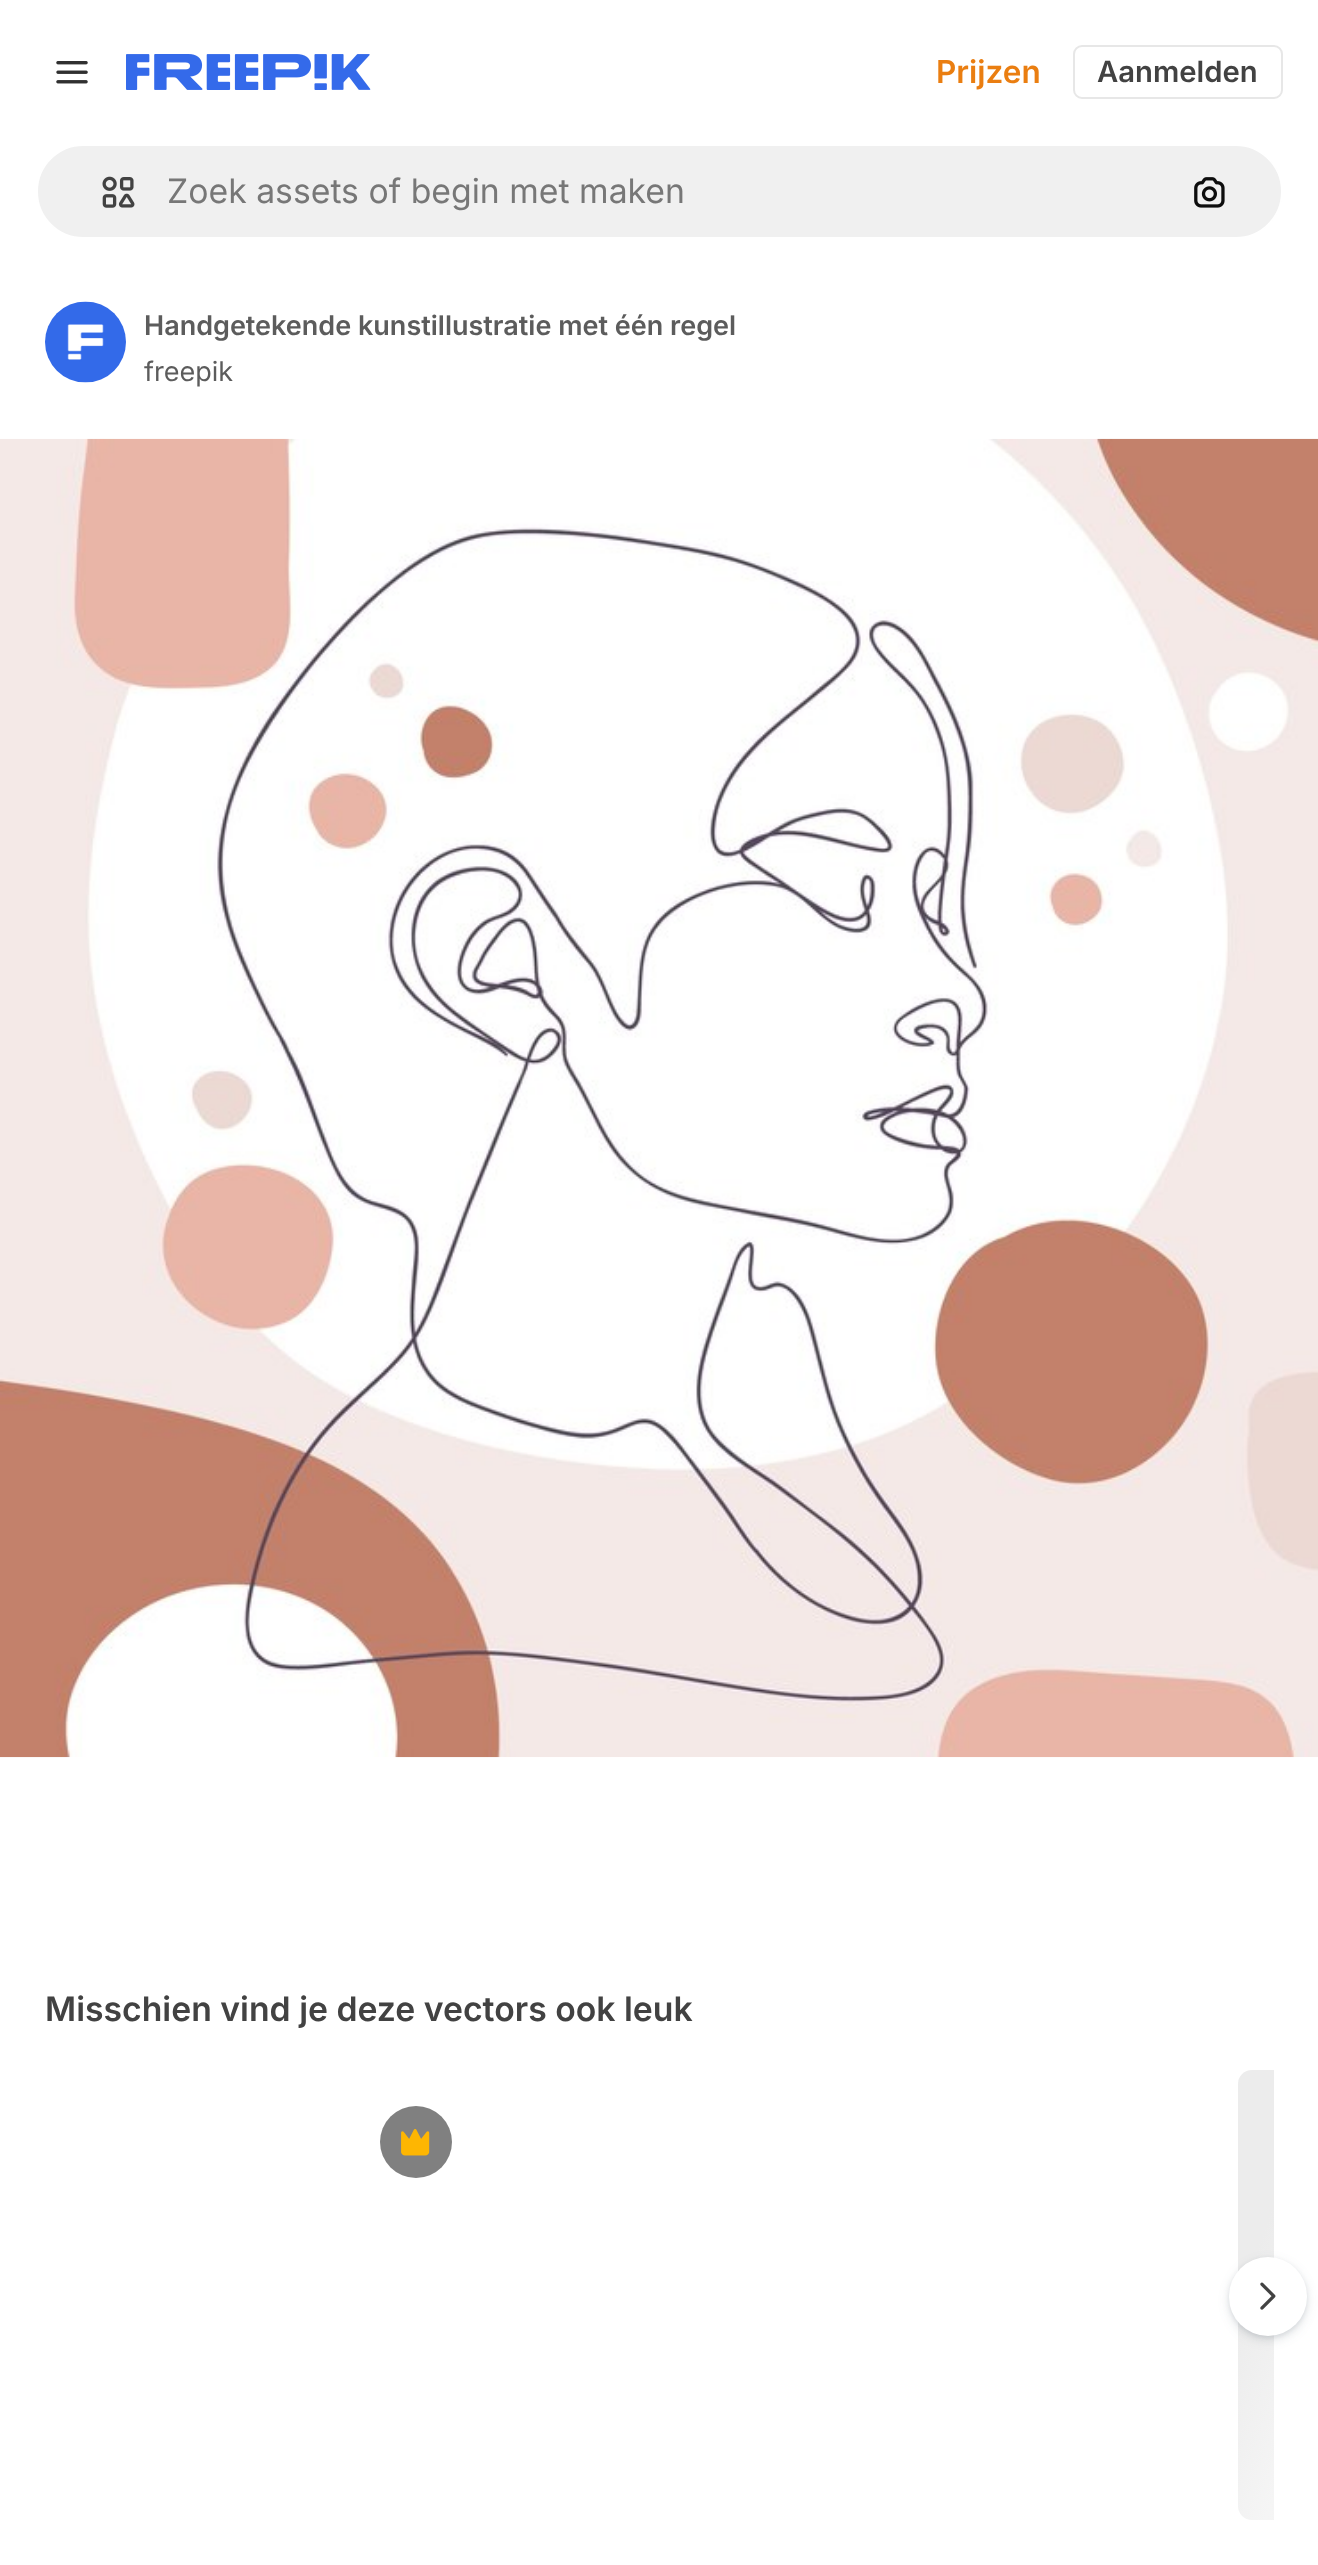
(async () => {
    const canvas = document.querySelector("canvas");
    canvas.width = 1318;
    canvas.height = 2565;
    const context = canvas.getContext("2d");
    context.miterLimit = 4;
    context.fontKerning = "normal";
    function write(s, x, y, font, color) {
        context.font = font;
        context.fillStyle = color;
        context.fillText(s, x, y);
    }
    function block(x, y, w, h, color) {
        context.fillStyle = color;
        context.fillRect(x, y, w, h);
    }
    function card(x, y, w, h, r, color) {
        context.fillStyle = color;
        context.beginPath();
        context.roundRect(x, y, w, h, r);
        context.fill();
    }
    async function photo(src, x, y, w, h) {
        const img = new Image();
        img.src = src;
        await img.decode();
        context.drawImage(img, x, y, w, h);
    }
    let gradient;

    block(0, 0, 1318, 2565, "rgb(255, 255, 255)");
    await photo("media/1.png", 56, 61, 32, 23);
    await photo("media/2.png", 126, 54, 245, 36);
    write("Prijzen", 936, 83, "600 31.5px Inter", "rgb(234, 126, 17)");
    context.beginPath();
    context.roundRect(1074, 46, 208, 52, 8);
    context.strokeStyle = "rgb(231, 231, 231)";
    context.lineWidth = 2;
    context.stroke();
    write("Aanmelden", 1097, 82, "600 29.25px Inter", "rgb(66, 66, 66)");
    context.fillStyle = "rgb(240, 240, 240)";
    context.beginPath();
    context.roundRect(37, 145, 1245, 93, 46.5);
    context.fill();
    context.strokeStyle = "rgb(255, 255, 255)";
    context.stroke();
    await photo("media/3.png", 102, 176, 33, 32);
    write("Zoek assets of begin met maken", 167, 203, "33.75px Inter", "rgb(119, 119, 119)");
    await photo("media/4.png", 1194, 177, 31, 31);
    await photo("media/5.png", 45, 301, 81, 82);
    write("Handgetekende kunstillustratie met één regel", 144, 335, "600 27px Inter", "rgb(92, 92, 92)");
    write("freepik", 144, 381, "27px Inter", "rgb(92, 92, 92)");
    await photo("media/6.png", 0, 438, 1318, 1320);
    write("Misschien vind je deze vectors ook leuk", 45, 2021, "600 33.75px Inter", "rgb(66, 66, 66)");
    context.fillStyle = "rgb(128, 128, 128)";
    context.beginPath();
    context.arc(416, 2142, 36, 0, Math.PI * 2);
    context.fill();
    await photo("media/7.png", 401, 2129, 29, 27);
    gradient = context.createLinearGradient(1218, 2124, 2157, 2466);
    gradient.addColorStop(0.08, "rgb(236, 236, 236)");
    gradient.addColorStop(0.18, "rgb(245, 245, 245)");
    gradient.addColorStop(0.33, "rgb(236, 236, 236)");
    context.fillStyle = gradient;
    context.beginPath();
    context.roundRect(1238, 2070, 36, 450, [14, 0, 0, 14]);
    context.fill();
    context.fillStyle = "rgba(55, 73, 87, 0.15)";
    context.filter = "blur(5.5px)";
    context.beginPath();
    context.roundRect(1229, 2261, 78, 79, 39);
    context.fill();
    context.filter = "none";
    context.fillStyle = "rgba(55, 73, 87, 0.1)";
    context.filter = "blur(2px)";
    context.beginPath();
    context.roundRect(1229, 2259, 78, 79, 39);
    context.fill();
    context.filter = "none";
    card(1229, 2257, 78, 79, 39, "rgb(255, 255, 255)");
    await photo("media/8.png", 1260, 2282, 16, 28);
})();
